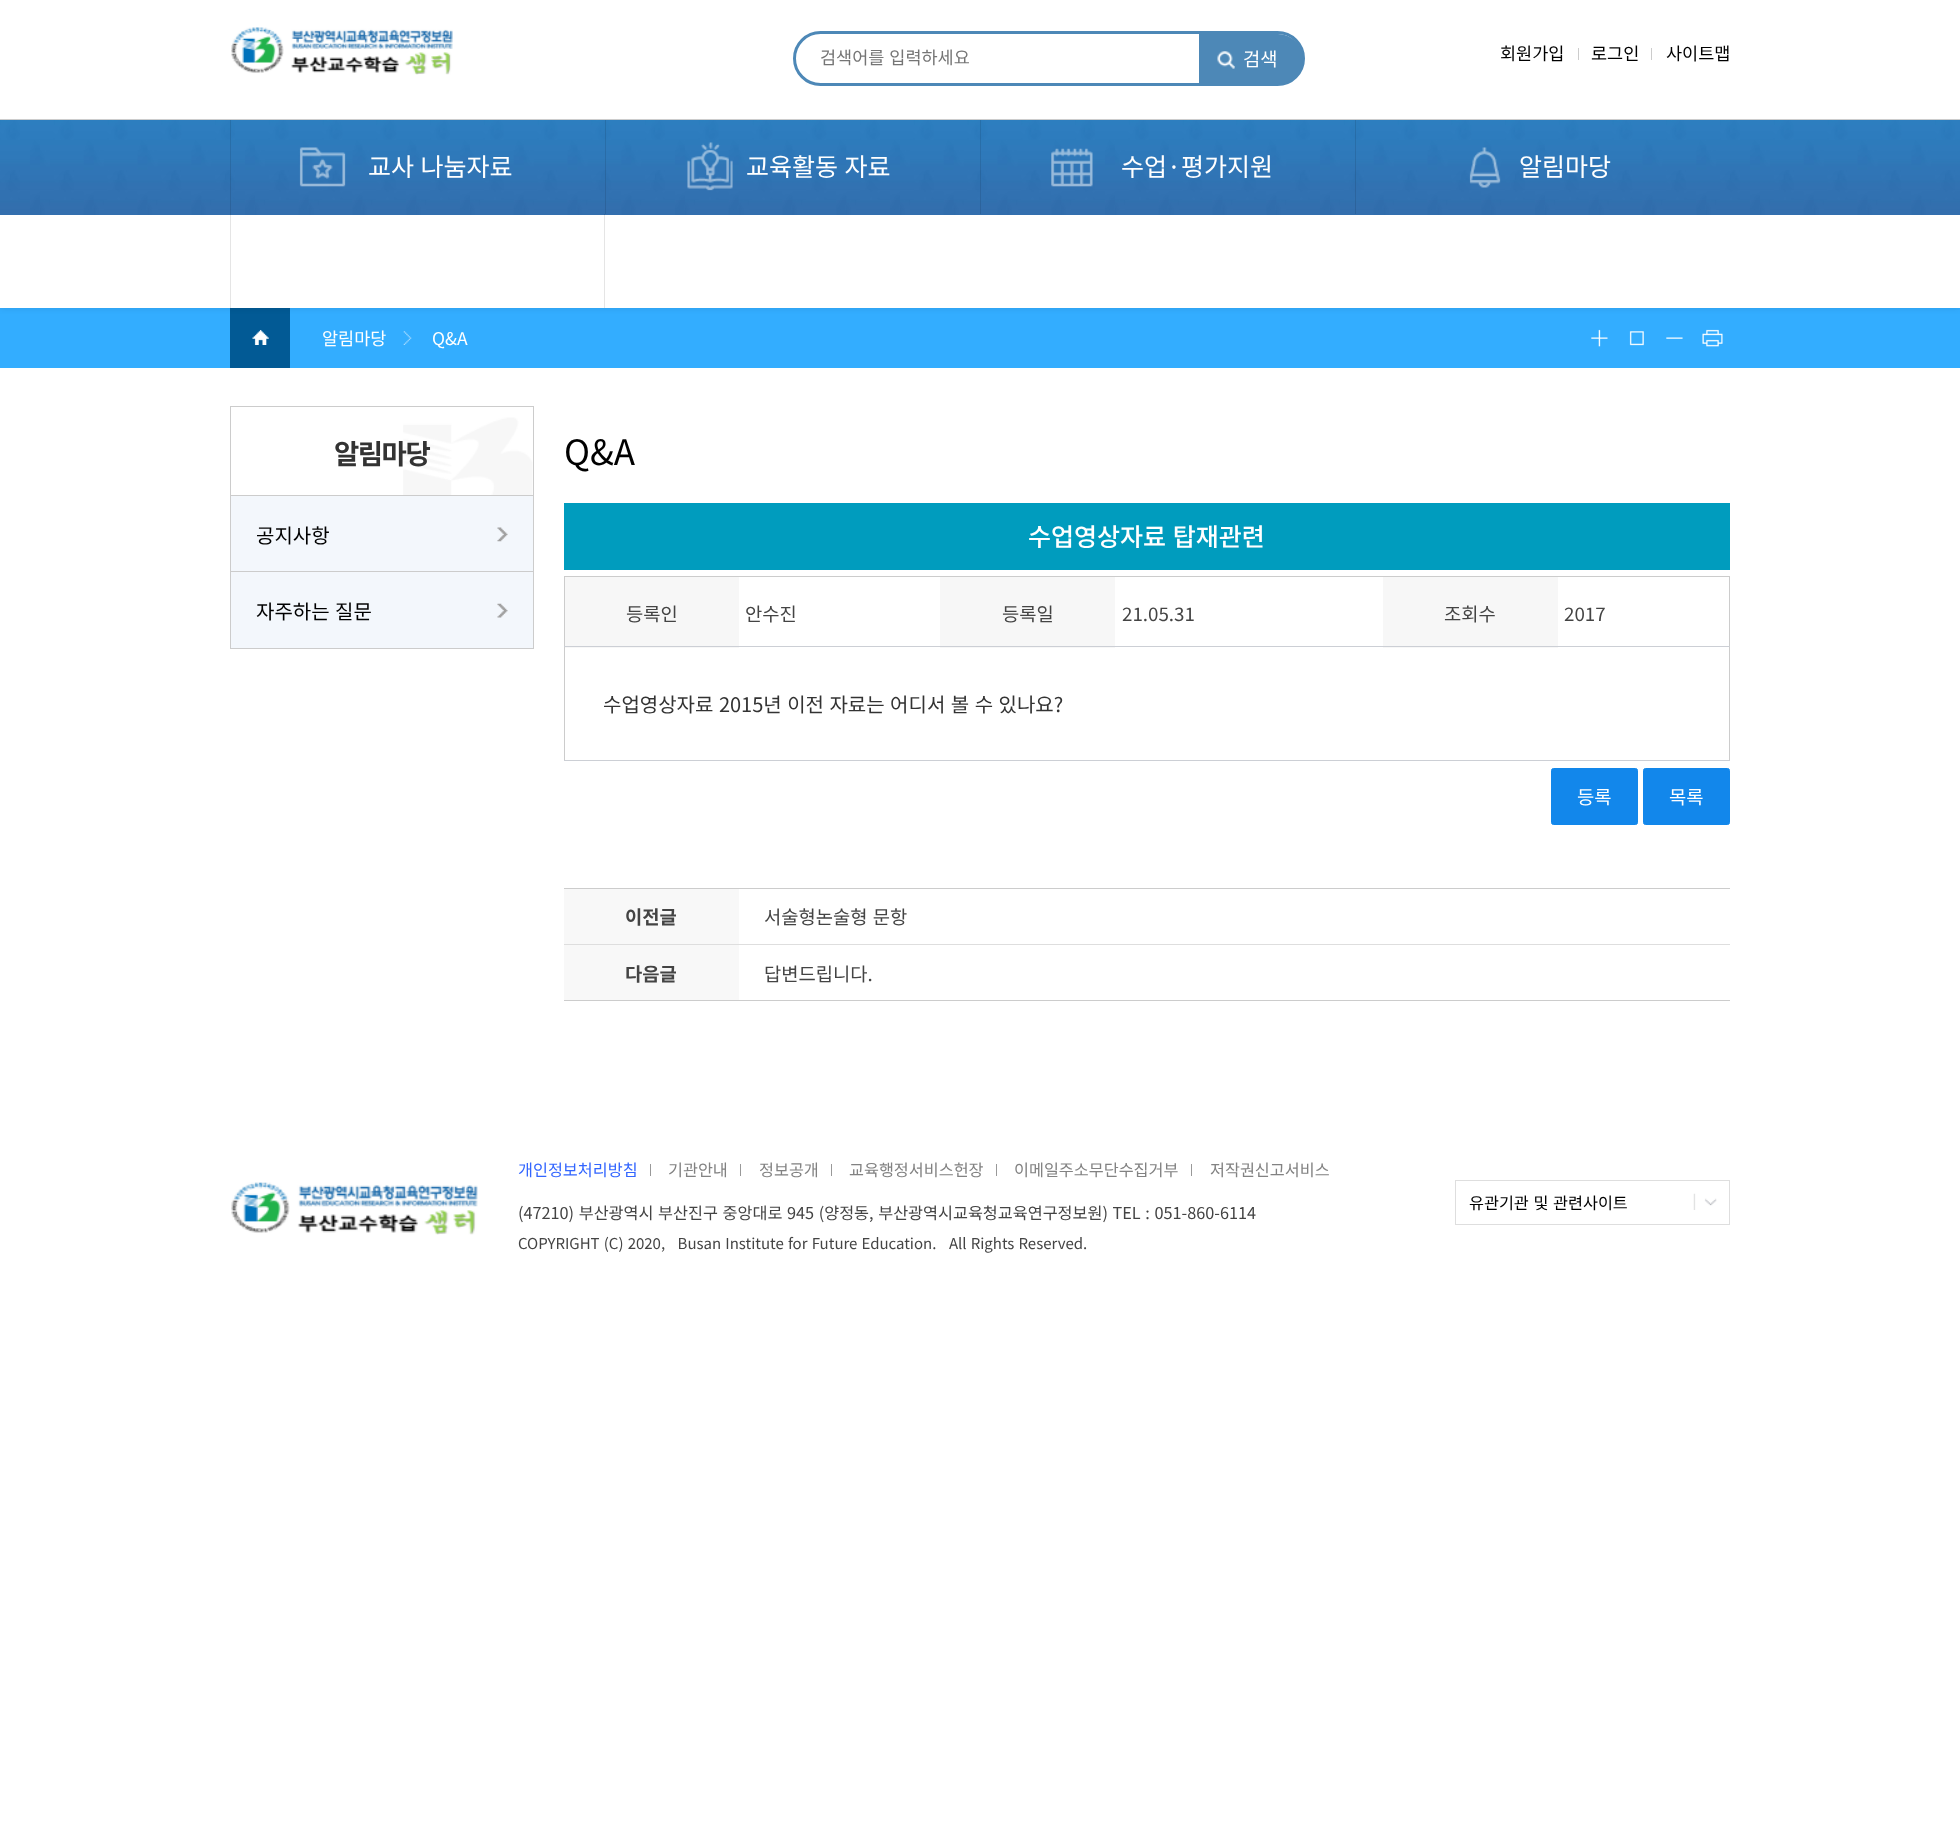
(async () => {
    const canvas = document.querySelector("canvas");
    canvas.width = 1960;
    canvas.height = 1826;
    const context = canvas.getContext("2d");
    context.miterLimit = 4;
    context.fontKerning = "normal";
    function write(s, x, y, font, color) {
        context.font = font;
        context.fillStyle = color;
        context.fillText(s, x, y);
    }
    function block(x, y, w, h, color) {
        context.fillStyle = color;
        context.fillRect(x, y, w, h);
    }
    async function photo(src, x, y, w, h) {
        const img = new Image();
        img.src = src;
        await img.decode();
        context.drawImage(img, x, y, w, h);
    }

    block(0, 0, 1960, 1826, "rgb(255, 255, 255)");
    block(0, 308, 1960, 60, "rgb(51, 173, 255)");
    block(230, 308, 60, 60, "rgb(2, 90, 149)");
    context.fillStyle = "rgba(0, 0, 0, 0.1)";
    context.filter = "blur(3px)";
    context.beginPath();
    context.rect(0, 0, 1960, 308);
    context.fill();
    context.filter = "none";
    block(0, 0, 1960, 308, "rgb(255, 255, 255)");
    block(0, 119, 1960, 1, "rgb(204, 204, 204)");
    await photo("media/1.png", 231, 27, 222, 48);
    context.beginPath();
    context.roundRect(794.5, 32.5, 509, 52, 26);
    context.strokeStyle = "rgb(77, 136, 183)";
    context.lineWidth = 3;
    context.stroke();
    context.wordSpacing = "1px";
    write("검색어를 입력하세요", 820, 64, "17.5px Noto Sans KR", "rgb(117, 117, 117)");
    context.fillStyle = "rgb(77, 136, 183)";
    context.beginPath();
    context.roundRect(1199, 34, 104, 50, [0, 25, 25, 0]);
    context.fill();
    await photo("media/2.png", 1217, 51, 18, 18);
    context.wordSpacing = "0px";
    write("검색", 1243, 66, "18.75px Noto Sans KR", "rgb(255, 255, 255)");
    write("회원가입", 1500, 60, "17.5px Noto Sans KR", "rgb(0, 0, 0)");
    block(1578, 48, 1, 12, "rgb(204, 204, 204)");
    write("로그인", 1591, 60, "17.5px Noto Sans KR", "rgb(0, 0, 0)");
    block(1651, 48, 1, 12, "rgb(204, 204, 204)");
    write("사이트맵", 1666, 60, "17.5px Noto Sans KR", "rgb(0, 0, 0)");
    await photo("media/3.png", 0, 120, 1960, 95);
    block(230, 120, 1, 94, "rgba(0, 0, 0, 0.1)");
    await photo("media/4.png", 299, 147, 47, 40);
    context.wordSpacing = "1px";
    write("교사 나눔자료", 368, 176, "25px Noto Sans KR", "rgb(255, 255, 255)");
    block(605, 120, 1, 94, "rgba(0, 0, 0, 0.1)");
    await photo("media/5.png", 687, 142, 46, 49);
    write("교육활동 자료", 746, 176, "25px Noto Sans KR", "rgb(255, 255, 255)");
    block(980, 120, 1, 94, "rgba(0, 0, 0, 0.1)");
    await photo("media/6.png", 1051, 148, 42, 39);
    context.wordSpacing = "0px";
    write("수업·평가지원", 1121, 176, "25px Noto Sans KR", "rgb(255, 255, 255)");
    block(1355, 120, 1, 94, "rgba(0, 0, 0, 0.1)");
    await photo("media/7.png", 1469, 147, 32, 41);
    write("알림마당", 1519, 176, "25px Noto Sans KR", "rgb(255, 255, 255)");
    block(604, 214, 1, 94, "rgba(0, 0, 0, 0.1)");
    block(230, 214, 1, 94, "rgba(0, 0, 0, 0.1)");
    await photo("media/8.png", 252, 330, 17, 15);
    await photo("media/9.png", 403, 331, 9, 14);
    write("알림마당", 322, 345, "17.5px Noto Sans KR", "rgb(255, 255, 255)");
    write("Q&A", 432, 345, "17.5px Noto Sans KR", "rgb(255, 255, 255)");
    await photo("media/10.png", 1591, 329, 17, 18);
    await photo("media/11.png", 1629, 331, 15, 15);
    await photo("media/12.png", 1666, 337, 17, 2);
    await photo("media/13.png", 1702, 329, 21, 18);
    await photo("media/14.png", 403, 417, 130, 78);
    context.strokeStyle = "rgb(204, 204, 204)";
    context.lineWidth = 1;
    context.strokeRect(230.5, 406.5, 303, 89);
    context.letterSpacing = "-1.5px";
    write("알림마당", 334, 464, "bold 27.5px Noto Sans KR", "rgb(51, 51, 51)");
    block(231, 496, 302, 152, "rgb(243, 247, 252)");
    block(533, 496, 1, 153, "rgb(204, 204, 204)");
    block(230, 571, 304, 1, "rgb(204, 204, 204)");
    block(230, 496, 1, 77, "rgb(204, 204, 204)");
    context.letterSpacing = "0px";
    write("공지사항", 256, 543, "20px Noto Sans KR", "rgb(0, 0, 0)");
    await photo("media/15.png", 497, 527, 11, 15);
    block(230, 648, 304, 1, "rgb(204, 204, 204)");
    block(230, 573, 1, 76, "rgb(204, 204, 204)");
    context.wordSpacing = "1px";
    write("자주하는 질문", 256, 619, "20px Noto Sans KR", "rgb(0, 0, 0)");
    await photo("media/16.png", 497, 603, 11, 15);
    context.wordSpacing = "0px";
    write("Q&A", 564, 465, "35px Noto Sans KR", "rgb(0, 0, 0)");
    block(564, 503, 1166, 67, "rgb(0, 156, 190)");
    context.wordSpacing = "1px";
    write("수업영상자료 탑재관련", 1028, 546, "500 25px Noto Sans KR", "rgb(255, 255, 255)");
    block(564, 576, 1166, 1, "rgb(204, 204, 204)");
    block(1729, 576, 1, 185, "rgb(204, 204, 204)");
    block(564, 576, 1, 185, "rgb(204, 204, 204)");
    block(565, 577, 174, 71, "rgb(247, 247, 247)");
    context.wordSpacing = "0px";
    write("등록인", 626, 621, "18.75px Noto Sans KR", "rgb(68, 68, 68)");
    write("안수진", 745, 621, "18.75px Noto Sans KR", "rgb(68, 68, 68)");
    block(940, 577, 175, 71, "rgb(247, 247, 247)");
    write("등록일", 1002, 621, "18.75px Noto Sans KR", "rgb(68, 68, 68)");
    write("21.05.31", 1122, 621, "18.75px Noto Sans KR", "rgb(68, 68, 68)");
    block(1383, 577, 175, 71, "rgb(247, 247, 247)");
    write("조회수", 1444, 621, "18.75px Noto Sans KR", "rgb(68, 68, 68)");
    block(564, 646, 1166, 1, "rgb(204, 207, 213)");
    write("2017", 1564, 621, "18.75px Noto Sans KR", "rgb(68, 68, 68)");
    block(564, 760, 1166, 1, "rgb(204, 207, 213)");
    context.wordSpacing = "1px";
    write("수업영상자료 2015년 이전 자료는 어디서 볼 수 있나요?", 603, 712, "20px Noto Sans KR", "rgb(51, 51, 51)");
    context.fillStyle = "rgb(18, 135, 235)";
    context.beginPath();
    context.roundRect(1551.5, 768.5, 86, 56, 2);
    context.fill();
    context.strokeStyle = "rgb(18, 135, 234)";
    context.stroke();
    context.wordSpacing = "0px";
    write("등록", 1577, 804, "18.75px Noto Sans KR", "rgb(255, 255, 255)");
    context.fillStyle = "rgb(18, 135, 235)";
    context.beginPath();
    context.roundRect(1643.5, 768.5, 86, 56, 2);
    context.fill();
    context.stroke();
    write("목록", 1669, 804, "18.75px Noto Sans KR", "rgb(255, 255, 255)");
    block(564, 888, 1166, 1, "rgb(204, 204, 204)");
    block(564, 1000, 1166, 1, "rgb(204, 204, 204)");
    block(564, 944, 1166, 1, "rgb(222, 222, 222)");
    block(564, 889, 175, 55, "rgb(248, 248, 248)");
    write("이전글", 625, 924, "bold 18.75px Noto Sans KR", "rgb(68, 68, 68)");
    context.wordSpacing = "1px";
    write("서술형논술형 문항", 764, 924, "18.75px Noto Sans KR", "rgb(68, 68, 68)");
    block(564, 945, 175, 55, "rgb(248, 248, 248)");
    context.wordSpacing = "0px";
    write("다음글", 625, 981, "bold 18.75px Noto Sans KR", "rgb(68, 68, 68)");
    write("답변드립니다.", 764, 981, "18.75px Noto Sans KR", "rgb(68, 68, 68)");
    await photo("media/17.png", 231, 1182, 247, 53);
    write("개인정보처리방침", 518, 1176, "16.25px Noto Sans KR", "rgb(51, 102, 255)");
    block(650, 1164, 1, 12, "rgb(153, 153, 153)");
    write("기관안내", 668, 1176, "16.25px Noto Sans KR", "rgb(130, 130, 130)");
    block(740, 1164, 1, 12, "rgb(153, 153, 153)");
    write("정보공개", 759, 1176, "16.25px Noto Sans KR", "rgb(130, 130, 130)");
    block(831, 1164, 1, 12, "rgb(153, 153, 153)");
    write("교육행정서비스헌장", 849, 1176, "16.25px Noto Sans KR", "rgb(130, 130, 130)");
    block(996, 1164, 1, 12, "rgb(153, 153, 153)");
    write("이메일주소무단수집거부", 1014, 1176, "16.25px Noto Sans KR", "rgb(130, 130, 130)");
    block(1191, 1164, 1, 12, "rgb(153, 153, 153)");
    write("저작권신고서비스", 1210, 1176, "16.25px Noto Sans KR", "rgb(130, 130, 130)");
    context.wordSpacing = "1px";
    write("(47210) 부산광역시 부산진구 중앙대로 945 (양정동, 부산광역시교육청교육연구정보원) TEL : 051-860-6114", 518, 1219, "16.25px Noto Sans KR", "rgb(68, 68, 68)");
    context.wordSpacing = "0.8px";
    write("COPYRIGHT (C) 2020,   Busan Institute for Future Education.   All Rights Reserved.", 518, 1249, "15px Noto Sans KR", "rgb(68, 68, 68)");
    await photo("media/18.png", 1693, 1193, 24, 17);
    context.strokeStyle = "rgb(222, 222, 222)";
    context.strokeRect(1455.5, 1180.5, 274, 44);
    context.wordSpacing = "1px";
    write("유관기관 및 관련사이트", 1469, 1209, "16.25px Noto Sans KR", "rgb(0, 0, 0)");
})();
